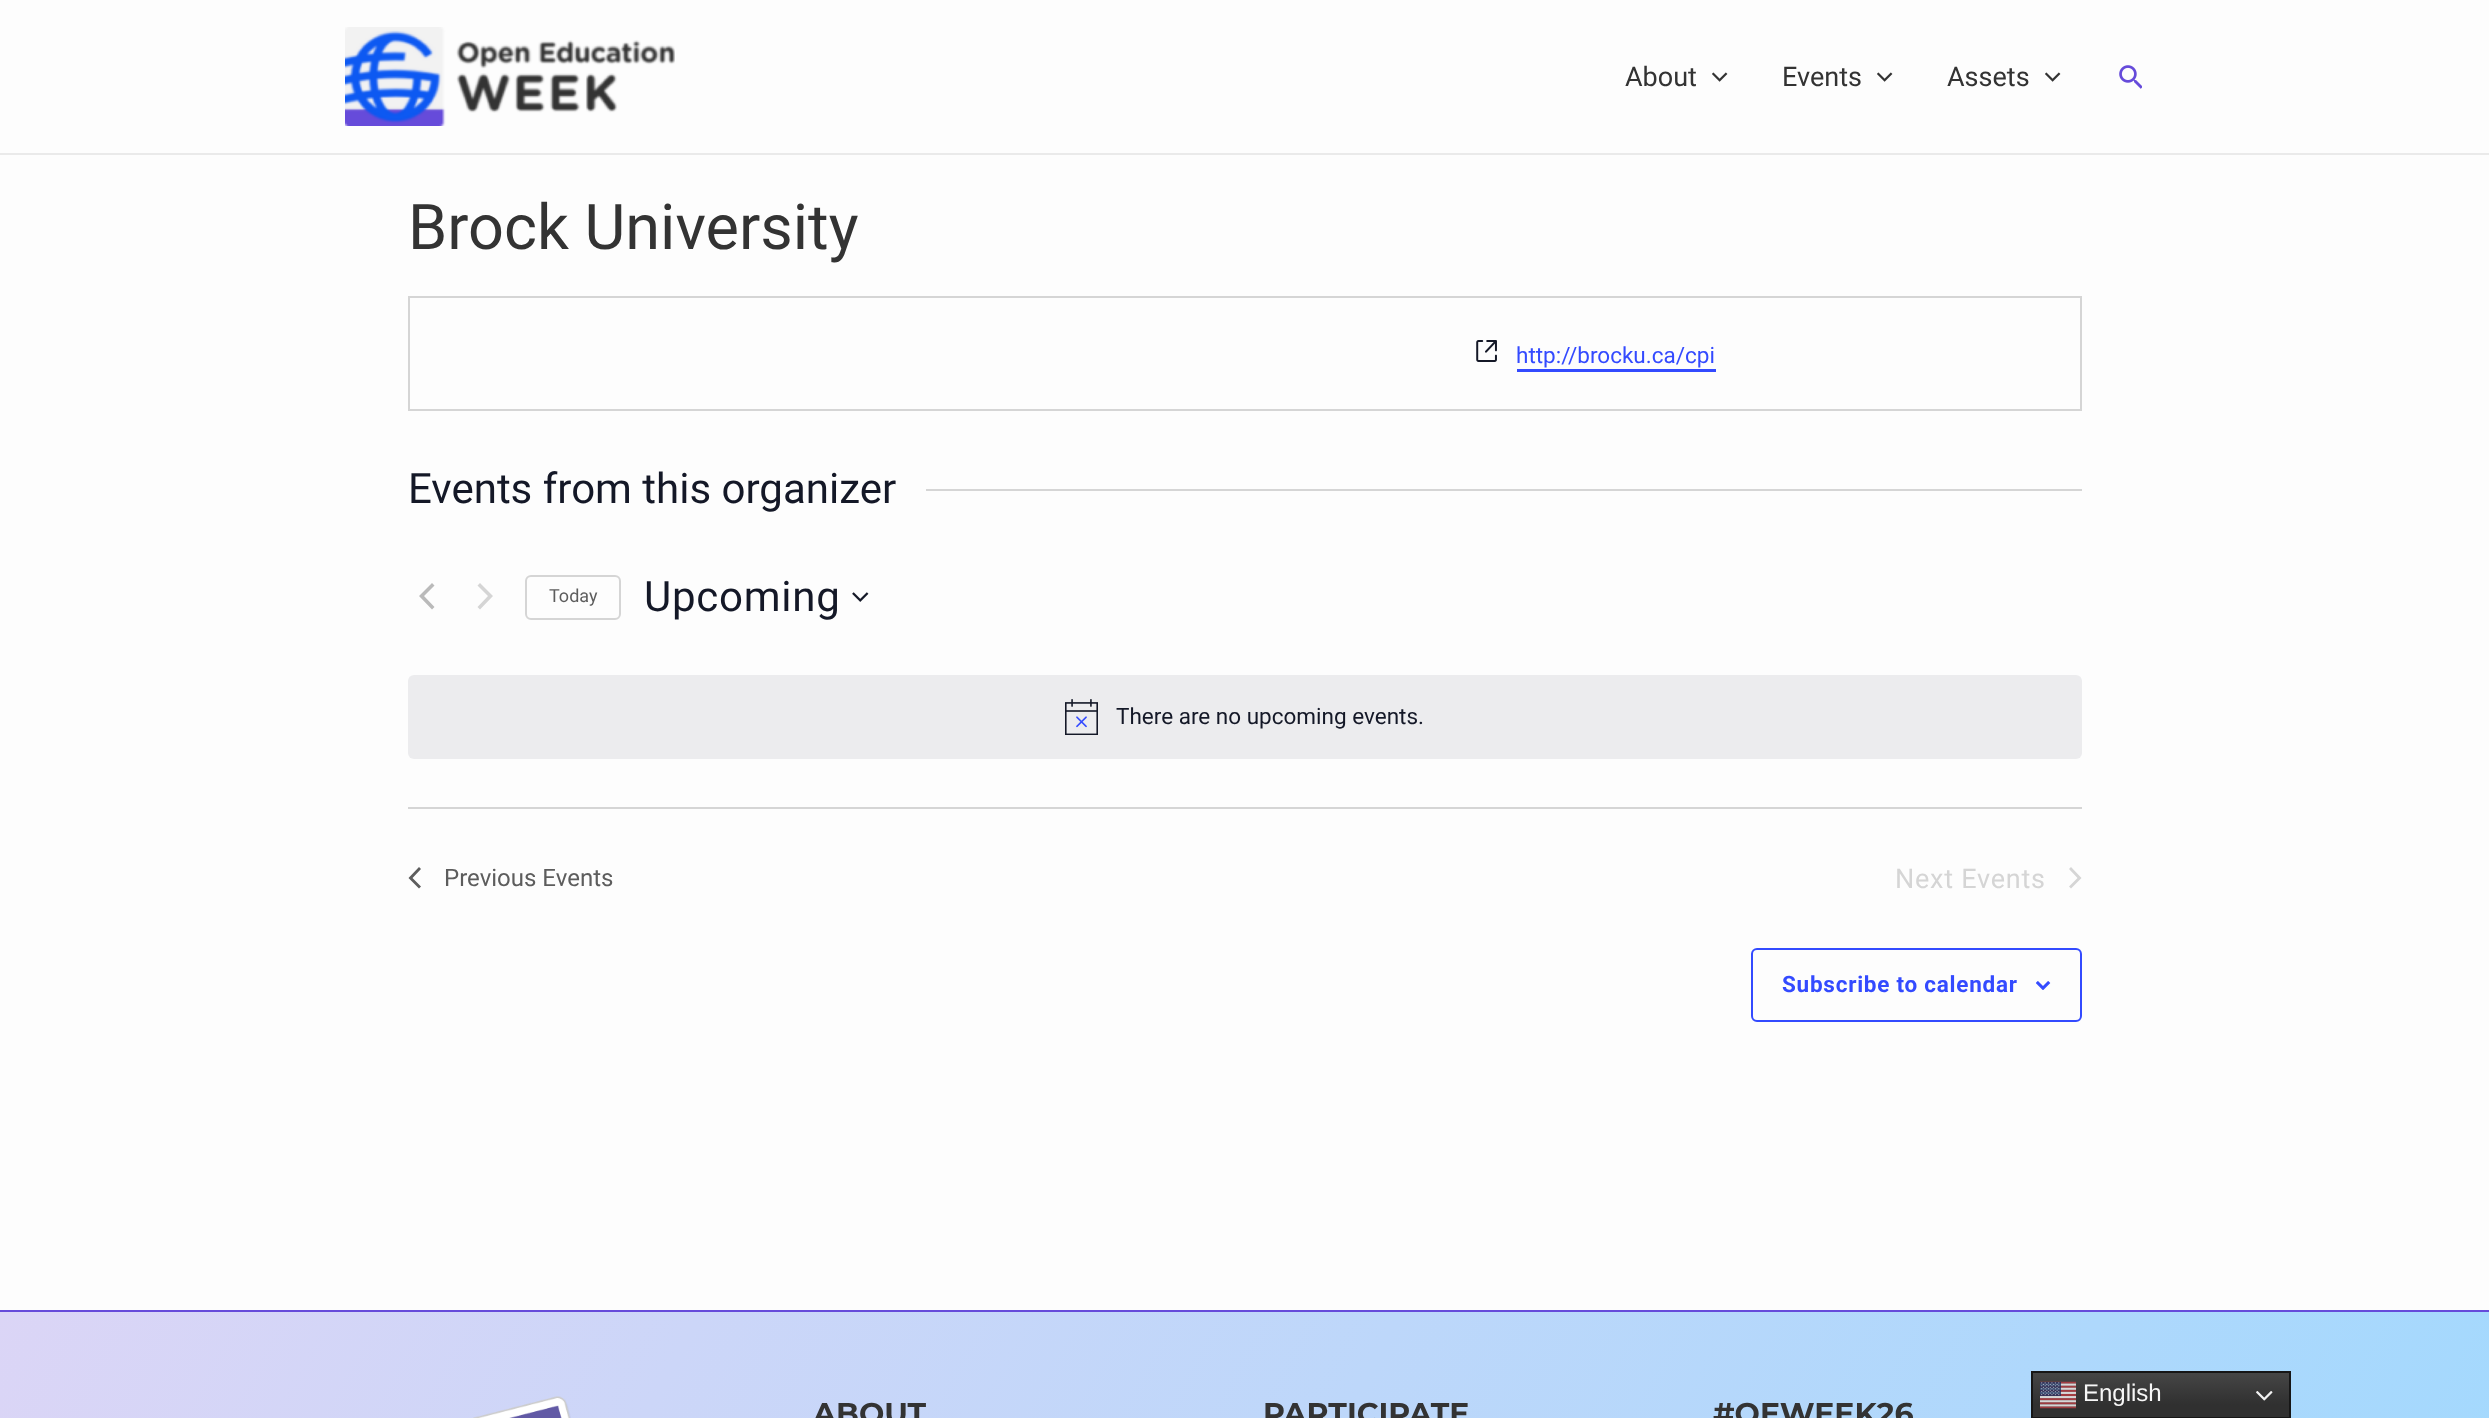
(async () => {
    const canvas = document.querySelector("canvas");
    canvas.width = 2489;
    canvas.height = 1418;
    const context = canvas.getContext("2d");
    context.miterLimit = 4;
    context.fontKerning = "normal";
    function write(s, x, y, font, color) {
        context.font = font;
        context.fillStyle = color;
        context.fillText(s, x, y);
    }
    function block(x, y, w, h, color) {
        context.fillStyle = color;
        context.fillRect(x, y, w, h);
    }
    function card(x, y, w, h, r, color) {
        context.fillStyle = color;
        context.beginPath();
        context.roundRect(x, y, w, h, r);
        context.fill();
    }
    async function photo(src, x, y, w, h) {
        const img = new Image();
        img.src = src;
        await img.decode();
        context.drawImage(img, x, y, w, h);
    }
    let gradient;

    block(0, 0, 2489, 1418, "rgb(253, 253, 253)");
    block(0, 153, 2489, 2, "rgb(234, 234, 234)");
    await photo("media/1.png", 345, 27, 330, 99);
    write("About", 1625, 86, "27px Roboto", "rgb(51, 51, 51)");
    await photo("media/2.png", 1712, 72, 16, 10);
    write("Events", 1782, 86, "27px Roboto", "rgb(51, 51, 51)");
    await photo("media/2.png", 1877, 72, 16, 10);
    write("Assets", 1947, 86, "27px Roboto", "rgb(51, 51, 51)");
    await photo("media/2.png", 2045, 72, 16, 10);
    await photo("media/3.png", 2119, 65, 23, 24);
    write("Brock University", 408, 249, "63px Roboto", "rgb(51, 51, 51)");
    context.strokeStyle = "rgb(213, 213, 213)";
    context.lineWidth = 2;
    context.strokeRect(409, 297, 1672, 113);
    await photo("media/4.png", 1476, 340, 21, 22);
    write("http://brocku.ca/cpi", 1516, 363, "22.5px Roboto", "rgb(51, 74, 255)");
    block(1517, 369, 199, 3, "rgb(51, 74, 255)");
    write("Events from this organizer", 408, 503, "42px Roboto", "rgb(20, 24, 39)");
    block(926, 489, 1156, 2, "rgb(213, 213, 213)");
    context.fillStyle = "rgb(186, 186, 186)";
    context.beginPath();
    context.moveTo(434.5, 607);
    context.lineTo(432, 609.5);
    context.lineTo(419, 596);
    context.lineTo(432, 583);
    context.lineTo(434.5, 585.5);
    context.lineTo(424, 596);
    context.closePath();
    context.fill();
    context.fillStyle = "rgb(213, 213, 213)";
    context.beginPath();
    context.moveTo(477.5, 585.5);
    context.lineTo(480, 583);
    context.lineTo(493, 596);
    context.lineTo(480, 609.5);
    context.lineTo(477.5, 607);
    context.lineTo(488, 596);
    context.closePath();
    context.fill();
    context.beginPath();
    context.roundRect(526, 576, 94, 43, 5);
    context.stroke();
    write("Today", 549, 602, "18px Roboto", "rgb(93, 93, 93)");
    context.letterSpacing = "0.75px";
    write("Upcoming", 644, 611, "42px Roboto", "rgb(20, 24, 39)");
    await photo("media/5.png", 852, 592, 17, 10);
    card(408, 675, 1674, 84, 6, "rgb(236, 236, 238)");
    await photo("media/6.png", 1065, 699, 33, 36);
    context.letterSpacing = "0px";
    write("There are no upcoming events.", 1116, 724, "22.5px Roboto", "rgb(20, 24, 39)");
    block(408, 807, 1674, 2, "rgb(213, 213, 213)");
    context.fillStyle = "rgb(93, 93, 93)";
    context.beginPath();
    context.moveTo(421, 886.5);
    context.lineTo(419, 888.5);
    context.lineTo(408.5, 878);
    context.lineTo(419, 867);
    context.lineTo(421, 869);
    context.lineTo(412.5, 878);
    context.closePath();
    context.fill();
    write("Previous Events", 444, 886, "24px Roboto", "rgb(93, 93, 93)");
    context.letterSpacing = "0.75px";
    write("Next Events", 1895, 888, "27px Roboto", "rgb(213, 213, 213)");
    context.beginPath();
    context.moveTo(2069, 869);
    context.lineTo(2071, 867);
    context.lineTo(2081.5, 878);
    context.lineTo(2071, 888.5);
    context.lineTo(2069, 886.5);
    context.lineTo(2077.5, 878);
    context.closePath();
    context.fill();
    context.beginPath();
    context.roundRect(1752, 949, 329, 72, 5);
    context.strokeStyle = "rgb(51, 74, 255)";
    context.stroke();
    write("Subscribe to calendar", 1782, 992, "bold 22.5px Roboto", "rgb(51, 74, 255)");
    await photo("media/7.png", 2036, 981, 15, 9);
    gradient = context.createLinearGradient(152, 1025, 2338, 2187);
    gradient.addColorStop(0, "rgb(219, 213, 246)");
    gradient.addColorStop(1, "rgb(159, 217, 254)");
    context.fillStyle = gradient;
    context.fillRect(0, 1312, 2489, 106);
    block(0, 1310, 2489, 2, "rgb(102, 75, 218)");
    await photo("media/8.png", 473, 1396, 98, 22);
    context.letterSpacing = "0px";
    write("ABOUT", 813, 1424, "100 30px Montserrat", "rgb(51, 51, 51)");
    write("PARTICIPATE", 1263, 1424, "100 30px Montserrat", "rgb(51, 51, 51)");
    write("#OEWEEK26", 1713, 1424, "100 30px Montserrat", "rgb(51, 51, 51)");
    gradient = context.createLinearGradient(2161, 1371, 2161, 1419);
    gradient.addColorStop(0, "rgb(71, 71, 71)");
    gradient.addColorStop(0.7, "rgb(48, 48, 48)");
    context.fillStyle = gradient;
    context.fillRect(2033, 1373, 256, 44);
    context.strokeStyle = "rgb(22, 22, 22)";
    context.strokeRect(2032, 1372, 258, 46);
    await photo("media/9.png", 2040, 1381, 36, 28);
    write("English", 2083, 1401, "24px Liberation Sans", "rgb(247, 247, 247)");
    await photo("media/10.png", 2256, 1391, 17, 10);
})();
